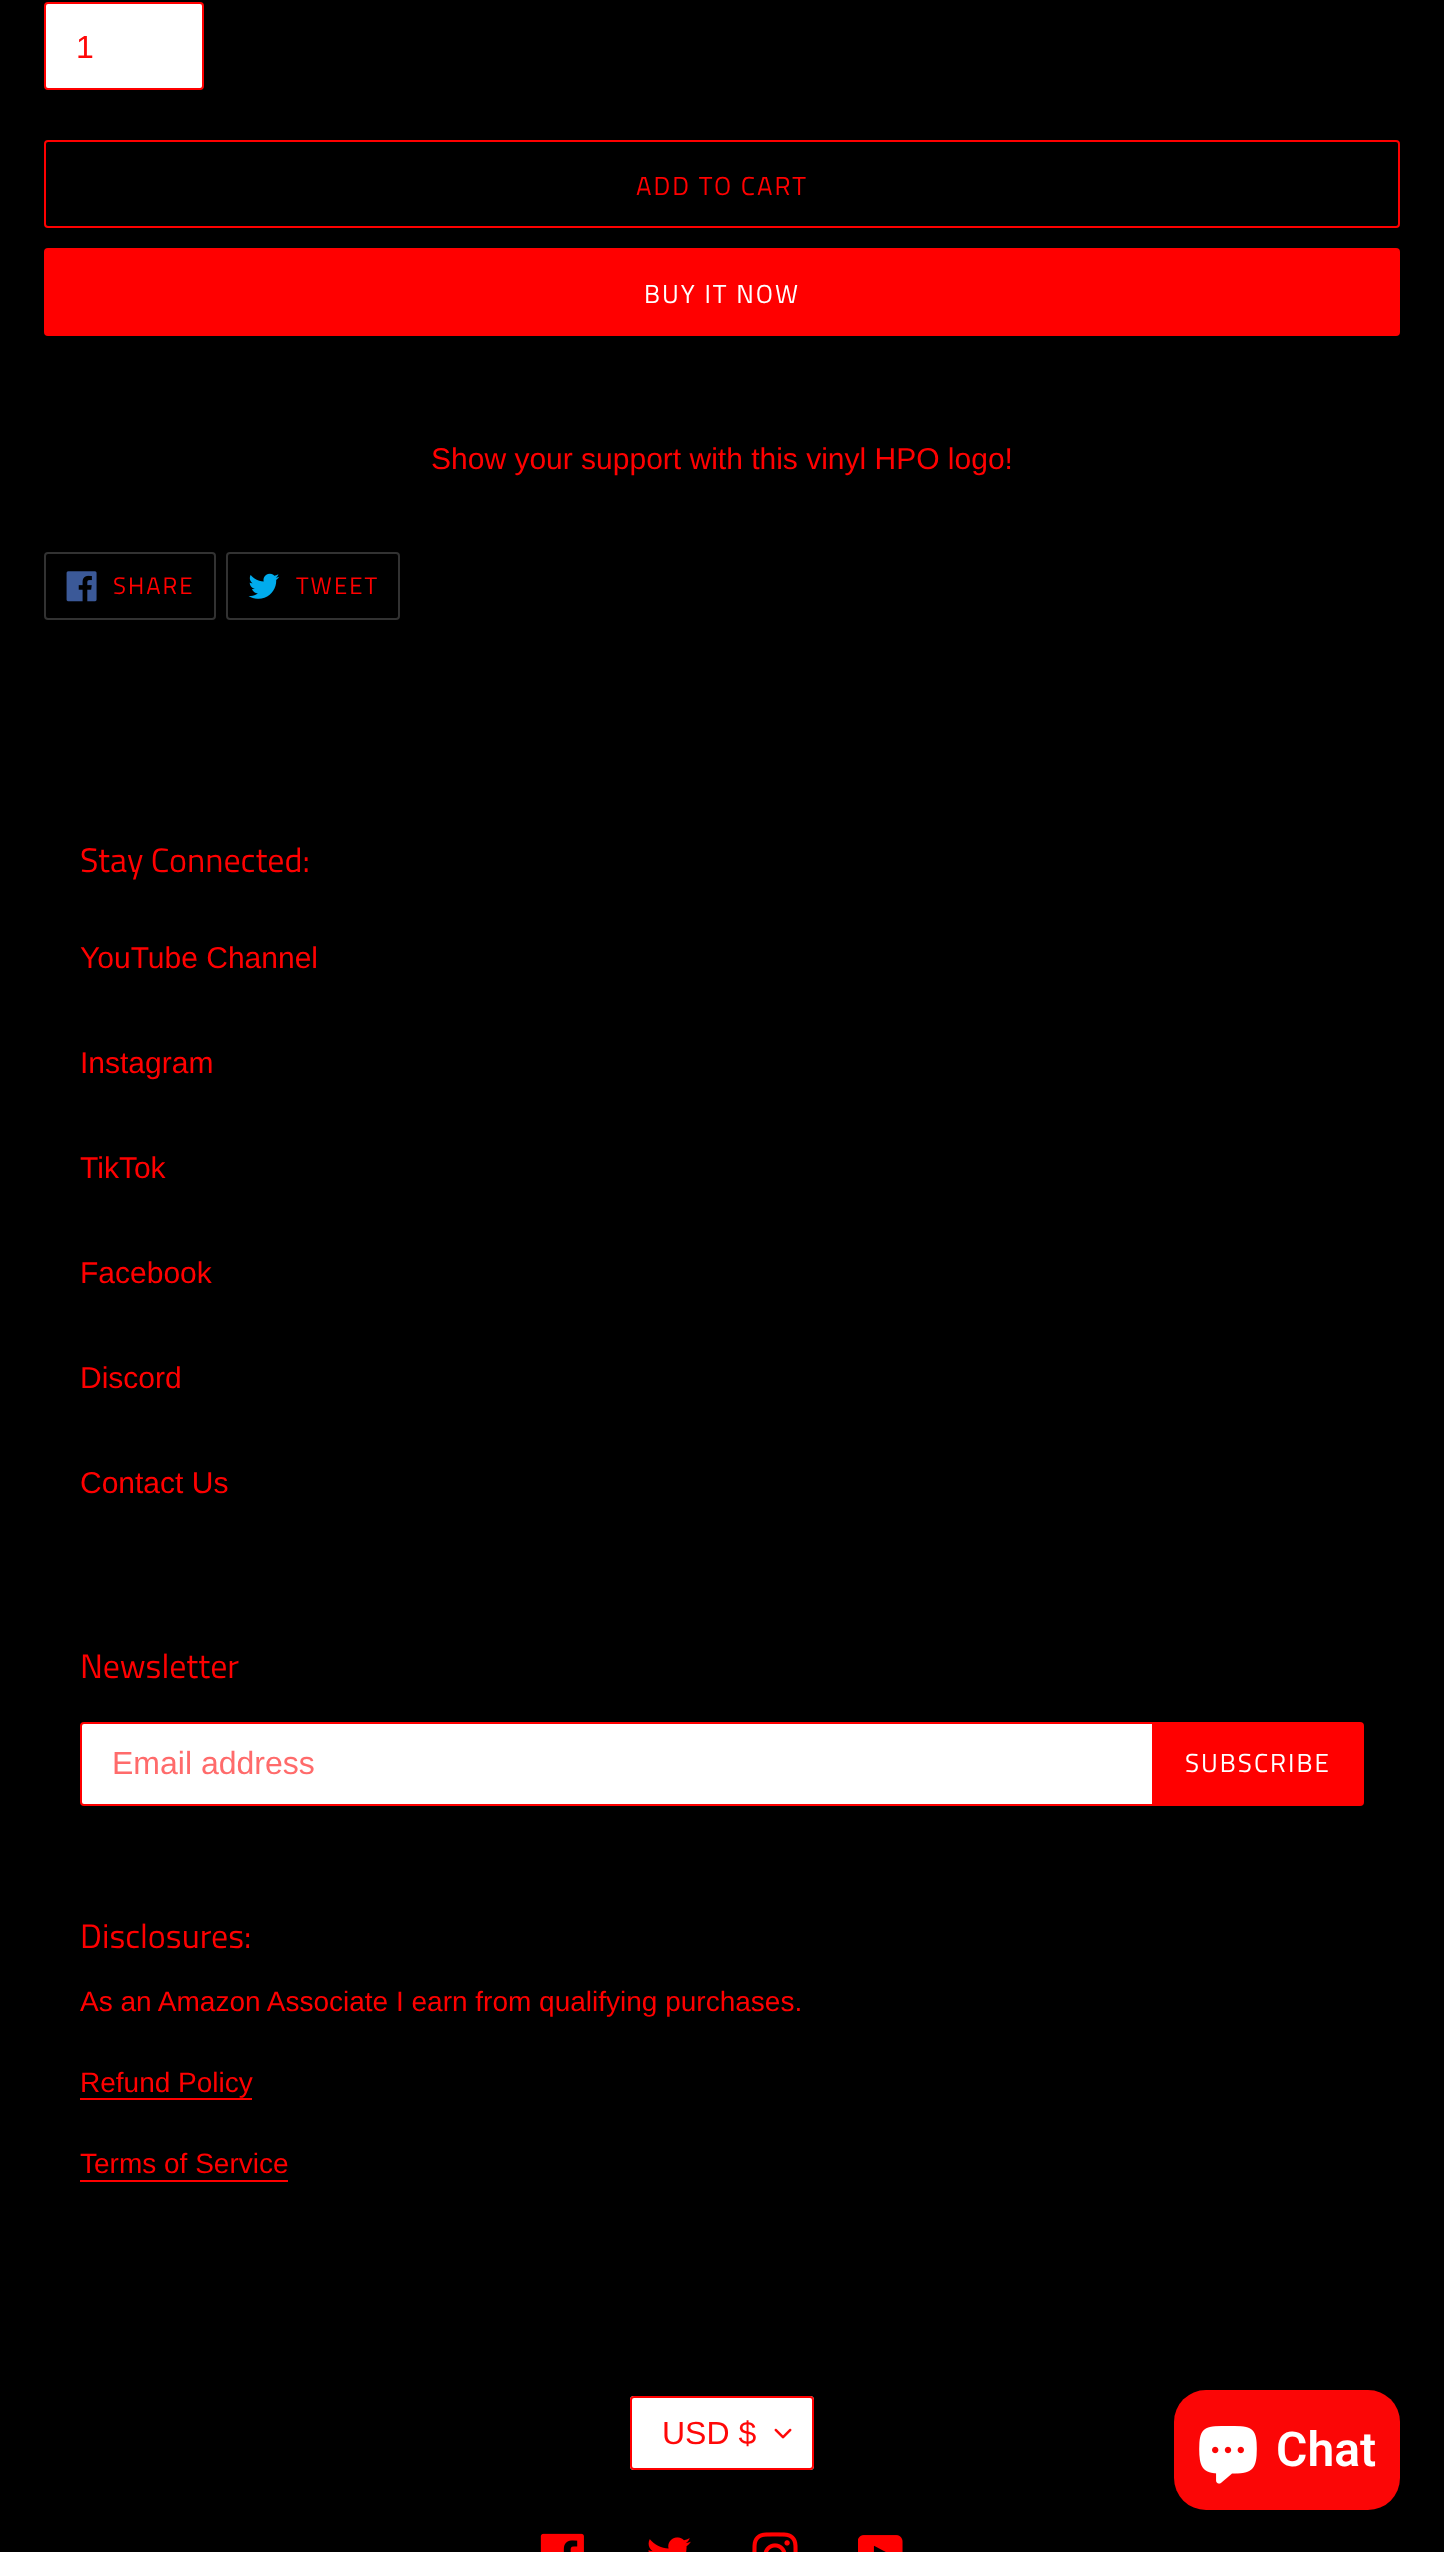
(async () => {
    const canvas = document.querySelector("canvas");
    canvas.width = 1444;
    canvas.height = 2552;
    const context = canvas.getContext("2d");
    context.miterLimit = 4;
    context.fontKerning = "normal";
    function write(s, x, y, font, color) {
        context.font = font;
        context.fillStyle = color;
        context.fillText(s, x, y);
    }
    function block(x, y, w, h, color) {
        context.fillStyle = color;
        context.fillRect(x, y, w, h);
    }
    function card(x, y, w, h, r, color) {
        context.fillStyle = color;
        context.beginPath();
        context.roundRect(x, y, w, h, r);
        context.fill();
    }
    async function photo(src, x, y, w, h) {
        const img = new Image();
        img.src = src;
        await img.decode();
        context.drawImage(img, x, y, w, h);
    }

    block(0, 0, 1444, 2552, "rgb(0, 0, 0)");
    context.fillStyle = "rgb(255, 255, 255)";
    context.beginPath();
    context.roundRect(45, 3, 158, 86, 3);
    context.fill();
    context.strokeStyle = "rgb(255, 0, 0)";
    context.lineWidth = 2;
    context.stroke();
    write("1", 76, 58, "32px Liberation Sans", "rgb(255, 8, 8)");
    context.beginPath();
    context.roundRect(45, 141, 1354, 86, 3);
    context.stroke();
    context.letterSpacing = "2px";
    write("ADD TO CART", 636, 195, "26px Titillium Web", "rgb(255, 0, 0)");
    card(44, 248, 1356, 88, 4, "rgb(255, 0, 0)");
    write("BUY IT NOW", 644, 303, "26px Titillium Web", "rgb(255, 255, 255)");
    context.letterSpacing = "0px";
    write("Show your support with this vinyl HPO logo!", 431, 469, "30px Liberation Sans", "rgb(255, 0, 0)");
    context.beginPath();
    context.roundRect(45, 553, 170, 66, 3);
    context.strokeStyle = "rgb(50, 50, 50)";
    context.stroke();
    await photo("media/1.png", 66, 571, 31, 31);
    context.letterSpacing = "2px";
    write("SHARE", 113, 594, "24px Titillium Web", "rgb(255, 0, 0)");
    context.beginPath();
    context.roundRect(227, 553, 172, 66, 3);
    context.stroke();
    await photo("media/2.png", 248, 573, 32, 26);
    write("TWEET", 296, 594, "24px Titillium Web", "rgb(255, 0, 0)");
    context.letterSpacing = "0px";
    write("Stay Connected:", 80, 872, "34px Titillium Web", "rgb(255, 0, 0)");
    write("YouTube Channel", 80, 968, "30px Liberation Sans", "rgb(255, 0, 0)");
    write("Instagram", 80, 1073, "30px Liberation Sans", "rgb(255, 0, 0)");
    write("TikTok", 80, 1178, "30px Liberation Sans", "rgb(255, 0, 0)");
    write("Facebook", 80, 1283, "30px Liberation Sans", "rgb(255, 0, 0)");
    write("Discord", 80, 1388, "30px Liberation Sans", "rgb(255, 0, 0)");
    write("Contact Us", 80, 1493, "30px Liberation Sans", "rgb(255, 0, 0)");
    write("Newsletter", 80, 1678, "34px Titillium Web", "rgb(255, 0, 0)");
    context.fillStyle = "rgb(255, 255, 255)";
    context.beginPath();
    context.roundRect(81, 1723, 1072, 82, [3, 0, 0, 3]);
    context.fill();
    context.strokeStyle = "rgb(255, 0, 0)";
    context.stroke();
    write("Email address", 112, 1774, "32px Liberation Sans", "rgb(255, 107, 107)");
    context.fillStyle = "rgb(255, 0, 0)";
    context.beginPath();
    context.roundRect(1154, 1722, 210, 84, [0, 4, 4, 0]);
    context.fill();
    context.letterSpacing = "2px";
    write("SUBSCRIBE", 1185, 1772, "26px Titillium Web", "rgb(255, 255, 255)");
    context.letterSpacing = "0px";
    write("Disclosures:", 80, 1948, "34px Titillium Web", "rgb(255, 0, 0)");
    write("As an Amazon Associate I earn from qualifying purchases.", 80, 2011, "28px Liberation Sans", "rgb(255, 0, 0)");
    write("Refund Policy", 80, 2092, "28px Liberation Sans", "rgb(255, 0, 0)");
    block(80, 2098, 172, 2, "rgb(255, 0, 0)");
    write("Terms of Service", 80, 2173, "28px Liberation Sans", "rgb(255, 0, 0)");
    block(80, 2180, 208, 2, "rgb(255, 0, 0)");
    card(630, 2396, 184, 74, 4, "rgb(255, 255, 255)");
    await photo("media/3.png", 774, 2428, 18, 11);
    context.beginPath();
    context.roundRect(631, 2397, 182, 72, 3);
    context.stroke();
    write("USD $", 662, 2444, "32px Liberation Sans", "rgb(255, 8, 8)");
    await photo("media/4.png", 540, 2533, 44, 19);
    await photo("media/5.png", 648, 2537, 43, 15);
    await photo("media/6.png", 752, 2532, 46, 20);
    await photo("media/7.png", 858, 2535, 45, 17);
    card(1174, 2390, 226, 120, 32, "rgb(251, 6, 6)");
    await photo("media/8.png", 1199, 2426, 58, 58);
    write("Chat", 1276, 2466, "600 48px Roboto", "rgb(255, 255, 255)");
})();
